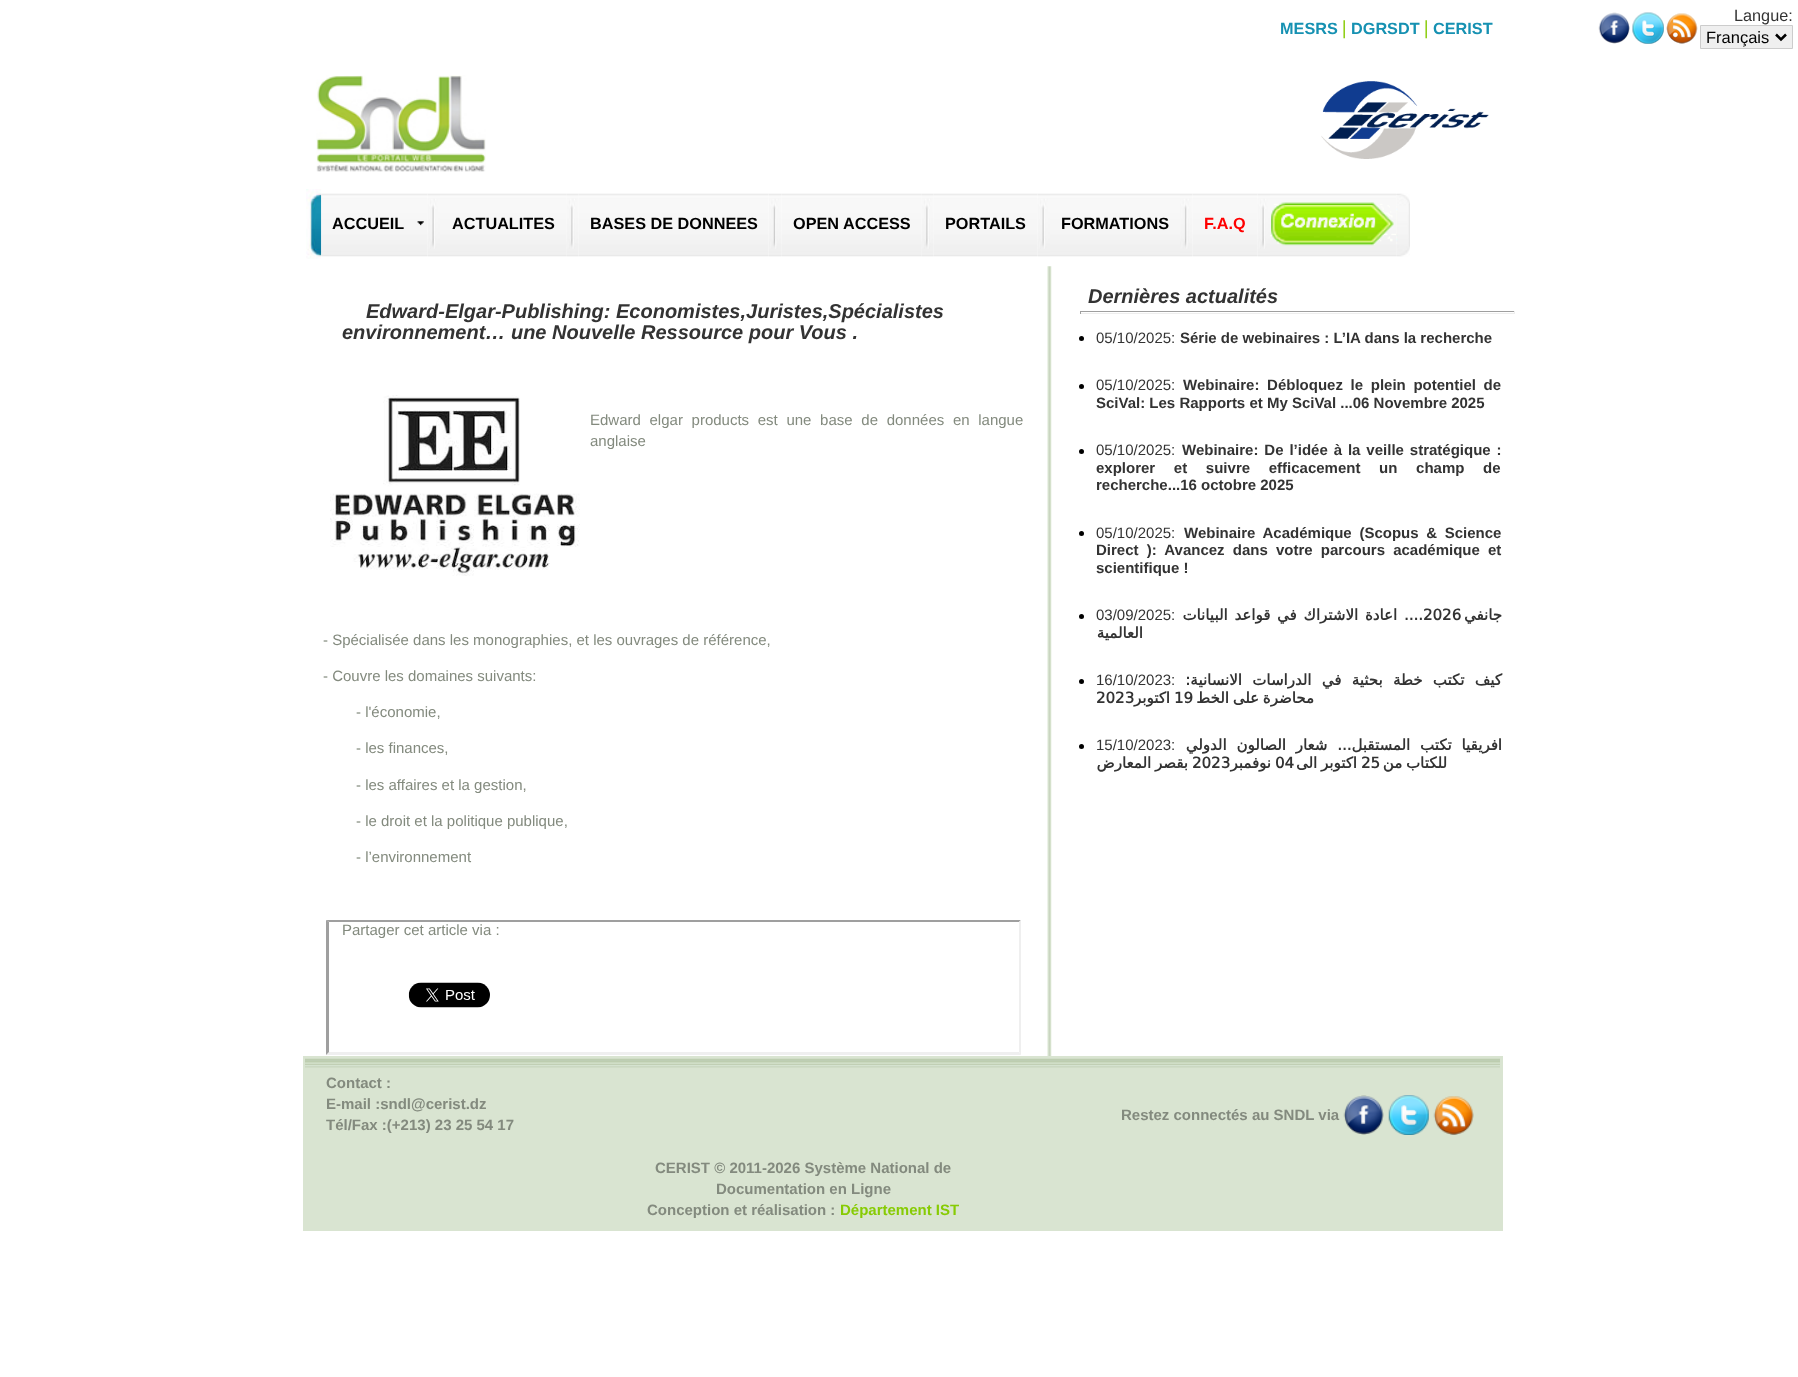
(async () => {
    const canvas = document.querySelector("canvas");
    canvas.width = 1798;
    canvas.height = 1377;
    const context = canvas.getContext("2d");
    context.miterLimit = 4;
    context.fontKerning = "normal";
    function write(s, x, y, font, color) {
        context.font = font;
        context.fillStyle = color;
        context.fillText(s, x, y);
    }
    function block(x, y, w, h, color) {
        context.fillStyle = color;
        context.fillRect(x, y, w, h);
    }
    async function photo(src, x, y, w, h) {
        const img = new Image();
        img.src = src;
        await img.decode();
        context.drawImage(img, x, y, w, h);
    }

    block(0, 0, 1798, 1377, "rgb(255, 255, 255)");
    write("MESRS", 1280, 34, "bold 16.25px Liberation Sans", "rgb(22, 145, 178)");
    write("|", 1342, 34, "bold 20px Liberation Serif", "rgb(135, 203, 4)");
    write("DGRSDT", 1351, 34, "bold 16.25px Liberation Sans", "rgb(22, 145, 178)");
    write("|", 1424, 34, "bold 20px Liberation Serif", "rgb(135, 203, 4)");
    write("CERIST", 1433, 34, "bold 16.25px Liberation Sans", "rgb(22, 145, 178)");
    await photo("media/1.png", 1598, 12, 32, 32);
    await photo("media/2.png", 1632, 12, 32, 32);
    await photo("media/3.png", 1666, 13, 32, 31);
    write("Langue:", 1734, 21, "16.25px Liberation Sans", "rgb(51, 51, 51)");
    context.fillStyle = "rgb(239, 239, 239)";
    context.beginPath();
    context.rect(1700.5, 25.5, 92, 23);
    context.fill();
    context.strokeStyle = "rgb(204, 204, 204)";
    context.stroke();
    context.beginPath();
    context.moveTo(1776, 34.5);
    context.lineTo(1781, 39.5);
    context.lineTo(1786, 34.5);
    context.strokeStyle = "rgb(0, 0, 0)";
    context.lineWidth = 2.5;
    context.stroke();
    write("Français", 1706, 43, "16.5px Liberation Sans", "rgb(0, 0, 0)");
    await photo("media/4.png", 316, 75, 170, 97);
    await photo("media/5.png", 1321, 81, 168, 78);
    await photo("media/6.png", 306, 189, 16, 70);
    await photo("media/7.png", 321, 193, 107, 64);
    write("ACCUEIL", 332, 229, "bold 16.25px Liberation Sans", "rgb(0, 0, 0)");
    await photo("media/8.png", 417, 221, 7, 5);
    await photo("media/9.png", 427, 193, 13, 64);
    await photo("media/10.png", 440, 193, 127, 64);
    write("ACTUALITES", 452, 229, "bold 16.25px Liberation Sans", "rgb(0, 0, 0)");
    await photo("media/11.png", 566, 193, 13, 64);
    await photo("media/12.png", 579, 193, 190, 64);
    write("BASES DE DONNEES", 590, 229, "bold 16.25px Liberation Sans", "rgb(0, 0, 0)");
    await photo("media/13.png", 769, 193, 13, 64);
    await photo("media/14.png", 781, 193, 141, 64);
    write("OPEN ACCESS", 793, 229, "bold 16.25px Liberation Sans", "rgb(0, 0, 0)");
    await photo("media/11.png", 921, 193, 13, 64);
    await photo("media/15.png", 934, 193, 104, 64);
    write("PORTAILS", 945, 229, "bold 16.25px Liberation Sans", "rgb(0, 0, 0)");
    await photo("media/16.png", 1037, 193, 13, 64);
    await photo("media/17.png", 1050, 193, 130, 64);
    write("FORMATIONS", 1061, 229, "bold 16.25px Liberation Sans", "rgb(0, 0, 0)");
    await photo("media/18.png", 1180, 193, 13, 64);
    await photo("media/19.png", 1192, 193, 66, 64);
    write("F.A.Q", 1204, 229, "bold 16.25px Liberation Sans", "rgb(255, 0, 0)");
    await photo("media/9.png", 1257, 193, 13, 64);
    await photo("media/10.png", 1270, 193, 127, 64);
    await photo("media/20.png", 1270, 202, 126, 44);
    await photo("media/21.png", 1396, 193, 14, 64);
    write("Edward-Elgar-Publishing: Economistes,Juristes,Spécialistes", 366, 318, "italic bold 20px Liberation Sans", "rgb(51, 51, 51)");
    write("environnement… une Nouvelle Ressource pour Vous .", 342, 339, "italic bold 20px Liberation Sans", "rgb(51, 51, 51)");
    await photo("media/22.png", 330, 395, 250, 181);
    context.wordSpacing = "4.5px";
    write("Edward elgar products est une base de données en langue", 590, 425, "15px Liberation Sans", "rgb(131, 138, 126)");
    context.wordSpacing = "0px";
    write("anglaise", 590, 446, "15px Liberation Sans", "rgb(131, 138, 126)");
    write("- Spécialisée dans les monographies, et les ouvrages de référence,", 323, 645, "15px Liberation Sans", "rgb(131, 138, 126)");
    write("- Couvre les domaines suivants:", 323, 681, "15px Liberation Sans", "rgb(131, 138, 126)");
    write("- l'économie,", 356, 717, "15px Liberation Sans", "rgb(131, 138, 126)");
    write("- les finances,", 356, 753, "15px Liberation Sans", "rgb(131, 138, 126)");
    write("- les affaires et la gestion,", 356, 790, "15px Liberation Sans", "rgb(131, 138, 126)");
    write("- le droit et la politique publique,", 356, 826, "15px Liberation Sans", "rgb(131, 138, 126)");
    write("- l’environnement", 356, 862, "15px Liberation Sans", "rgb(131, 138, 126)");
    context.fillStyle = "rgb(159, 159, 159)";
    context.beginPath();
    context.moveTo(326, 920);
    context.lineTo(1021, 920);
    context.lineTo(1019, 922);
    context.lineTo(329, 922);
    context.closePath();
    context.fill();
    context.fillStyle = "rgb(239, 239, 239)";
    context.beginPath();
    context.moveTo(1021, 920);
    context.lineTo(1021, 1055);
    context.lineTo(1019, 1052);
    context.lineTo(1019, 922);
    context.closePath();
    context.fill();
    context.beginPath();
    context.moveTo(1021, 1055);
    context.lineTo(326, 1055);
    context.lineTo(329, 1052);
    context.lineTo(1019, 1052);
    context.closePath();
    context.fill();
    context.fillStyle = "rgb(159, 159, 159)";
    context.beginPath();
    context.moveTo(326, 1055);
    context.lineTo(326, 920);
    context.lineTo(329, 922);
    context.lineTo(329, 1052);
    context.closePath();
    context.fill();
    write("Partager cet article via :", 342, 935, "15px Liberation Sans", "rgb(131, 138, 126)");
    await photo("media/23.png", 408, 982, 82, 26);
    await photo("media/24.png", 1047, 266, 5, 790);
    write("Dernières actualités", 1088, 303, "italic bold 20px Liberation Sans", "rgb(51, 51, 51)");
    block(1080, 311, 435, 1, "rgb(159, 159, 159)");
    block(1514, 311, 1, 3, "rgb(238, 238, 238)");
    block(1080, 313, 435, 1, "rgb(238, 238, 238)");
    block(1080, 311, 1, 3, "rgb(159, 159, 159)");
    context.fillStyle = "rgb(0, 0, 0)";
    context.beginPath();
    context.arc(1081.5, 338.5, 2.5, 0, Math.PI * 2);
    context.fill();
    write("05/10/2025:", 1096, 343, "15px Liberation Sans", "rgb(51, 51, 51)");
    write("Série de webinaires : L’IA dans la recherche", 1180, 343, "bold 15px Liberation Sans", "rgb(51, 51, 51)");
    context.fillStyle = "rgb(0, 0, 0)";
    context.beginPath();
    context.arc(1081.5, 386.5, 2.5, 0, Math.PI * 2);
    context.fill();
    write("05/10/2025:", 1096, 390, "15px Liberation Sans", "rgb(51, 51, 51)");
    context.wordSpacing = "3.5px";
    write("Webinaire: Débloquez le plein potentiel de", 1183, 390, "bold 15px Liberation Sans", "rgb(51, 51, 51)");
    context.wordSpacing = "0px";
    write("SciVal: Les Rapports et My SciVal ...06 Novembre 2025", 1096, 408, "bold 15px Liberation Sans", "rgb(51, 51, 51)");
    context.fillStyle = "rgb(0, 0, 0)";
    context.beginPath();
    context.arc(1081.5, 451.5, 2.5, 0, Math.PI * 2);
    context.fill();
    write("05/10/2025:", 1096, 455, "15px Liberation Sans", "rgb(51, 51, 51)");
    context.wordSpacing = "1.75px";
    write("Webinaire: De l’idée à la veille stratégique :", 1182, 455, "bold 15px Liberation Sans", "rgb(51, 51, 51)");
    context.wordSpacing = "14.5px";
    write("explorer et suivre efficacement un champ de", 1096, 473, "bold 15px Liberation Sans", "rgb(51, 51, 51)");
    context.wordSpacing = "0px";
    write("recherche...16 octobre 2025", 1096, 490, "bold 15px Liberation Sans", "rgb(51, 51, 51)");
    context.fillStyle = "rgb(0, 0, 0)";
    context.beginPath();
    context.arc(1081.5, 533.5, 2.5, 0, Math.PI * 2);
    context.fill();
    write("05/10/2025:", 1096, 538, "15px Liberation Sans", "rgb(51, 51, 51)");
    context.wordSpacing = "3.5px";
    write("Webinaire Académique (Scopus & Science", 1184, 538, "bold 15px Liberation Sans", "rgb(51, 51, 51)");
    context.wordSpacing = "4px";
    write("Direct ): Avancez dans votre parcours académique et", 1096, 555, "bold 15px Liberation Sans", "rgb(51, 51, 51)");
    context.wordSpacing = "0px";
    write("scientifique !", 1096, 573, "bold 15px Liberation Sans", "rgb(51, 51, 51)");
    context.fillStyle = "rgb(0, 0, 0)";
    context.beginPath();
    context.arc(1081.5, 616.5, 2.5, 0, Math.PI * 2);
    context.fill();
    write("03/09/2025:", 1096, 620, "15px Liberation Sans", "rgb(51, 51, 51)");
    context.wordSpacing = "2px";
    context.direction = "rtl";
    write(".... اعادة الاشتراك في قواعد البيانات", 1423, 620, "bold 15px DejaVu Sans", "rgb(51, 51, 51)");
    context.wordSpacing = "0px";
    context.direction = "ltr";
    write("2026", 1423, 620, "bold 15px DejaVu Sans", "rgb(51, 51, 51)");
    context.direction = "rtl";
    write("جانفي", 1502, 620, "bold 15px DejaVu Sans", "rgb(51, 51, 51)");
    write("العالمية", 1143, 638, "bold 15px DejaVu Sans", "rgb(51, 51, 51)");
    context.fillStyle = "rgb(0, 0, 0)";
    context.beginPath();
    context.arc(1081.5, 681.5, 2.5, 0, Math.PI * 2);
    context.fill();
    context.direction = "ltr";
    write("16/10/2023:", 1096, 685, "15px Liberation Sans", "rgb(51, 51, 51)");
    context.wordSpacing = "5.5px";
    context.direction = "rtl";
    write("كيف تكتب خطة بحثية في الدراسات الانسانية:", 1502, 685, "bold 15px DejaVu Sans", "rgb(51, 51, 51)");
    context.wordSpacing = "0px";
    context.direction = "ltr";
    write("2023", 1096, 703, "bold 15px DejaVu Sans", "rgb(51, 51, 51)");
    context.direction = "rtl";
    write("اكتوبر", 1170, 703, "bold 15px DejaVu Sans", "rgb(51, 51, 51)");
    context.direction = "ltr";
    write("19", 1174, 703, "bold 15px DejaVu Sans", "rgb(51, 51, 51)");
    context.wordSpacing = "-1px";
    context.direction = "rtl";
    write("محاضرة على الخط", 1314, 703, "bold 15px DejaVu Sans", "rgb(51, 51, 51)");
    context.fillStyle = "rgb(0, 0, 0)";
    context.beginPath();
    context.arc(1081.5, 746.5, 2.5, 0, Math.PI * 2);
    context.fill();
    context.wordSpacing = "0px";
    context.direction = "ltr";
    write("15/10/2023:", 1096, 750, "15px Liberation Sans", "rgb(51, 51, 51)");
    context.wordSpacing = "5px";
    context.direction = "rtl";
    write("افريقيا تكتب المستقبل... شعار الصالون الدولي", 1502, 750, "bold 15px DejaVu Sans", "rgb(51, 51, 51)");
    context.wordSpacing = "-1px";
    write("بقصر المعارض", 1188, 768, "bold 15px DejaVu Sans", "rgb(51, 51, 51)");
    context.wordSpacing = "0px";
    context.direction = "ltr";
    write("2023", 1192, 768, "bold 15px DejaVu Sans", "rgb(51, 51, 51)");
    context.direction = "rtl";
    write("نوفمبر", 1271, 768, "bold 15px DejaVu Sans", "rgb(51, 51, 51)");
    context.direction = "ltr";
    write("04", 1275, 768, "bold 15px DejaVu Sans", "rgb(51, 51, 51)");
    context.wordSpacing = "-1px";
    context.direction = "rtl";
    write("اكتوبر الى", 1357, 768, "bold 15px DejaVu Sans", "rgb(51, 51, 51)");
    context.wordSpacing = "0px";
    context.direction = "ltr";
    write("25", 1361, 768, "bold 15px DejaVu Sans", "rgb(51, 51, 51)");
    context.wordSpacing = "-1px";
    context.direction = "rtl";
    write("للكتاب من", 1447, 768, "bold 15px DejaVu Sans", "rgb(51, 51, 51)");
    block(303, 1056, 1200, 175, "rgb(217, 228, 209)");
    await photo("media/25.png", 305, 1058, 1195, 10);
    context.wordSpacing = "0px";
    context.direction = "ltr";
    write("Contact :", 326, 1088, "bold 15px Liberation Sans", "rgb(131, 138, 126)");
    write("E-mail :sndl@cerist.dz", 326, 1109, "bold 15px Liberation Sans", "rgb(131, 138, 126)");
    write("Tél/Fax :(+213) 23 25 54 17", 326, 1130, "bold 15px Liberation Sans", "rgb(131, 138, 126)");
    write("Restez connectés au SNDL via", 1121, 1120, "bold 15px Liberation Sans", "rgb(131, 138, 126)");
    await photo("media/26.png", 1343, 1095, 41, 40);
    await photo("media/27.png", 1388, 1095, 41, 40);
    await photo("media/28.png", 1433, 1096, 41, 39);
    write("CERIST © 2011-2026 Système National de", 655, 1173, "bold 15px Liberation Sans", "rgb(131, 138, 126)");
    write("Documentation en Ligne", 716, 1194, "bold 15px Liberation Sans", "rgb(131, 138, 126)");
    write("Conception et réalisation :", 647, 1215, "bold 15px Liberation Sans", "rgb(131, 138, 126)");
    write("Département IST", 840, 1215, "bold 15px Liberation Sans", "rgb(135, 203, 4)");
})();
